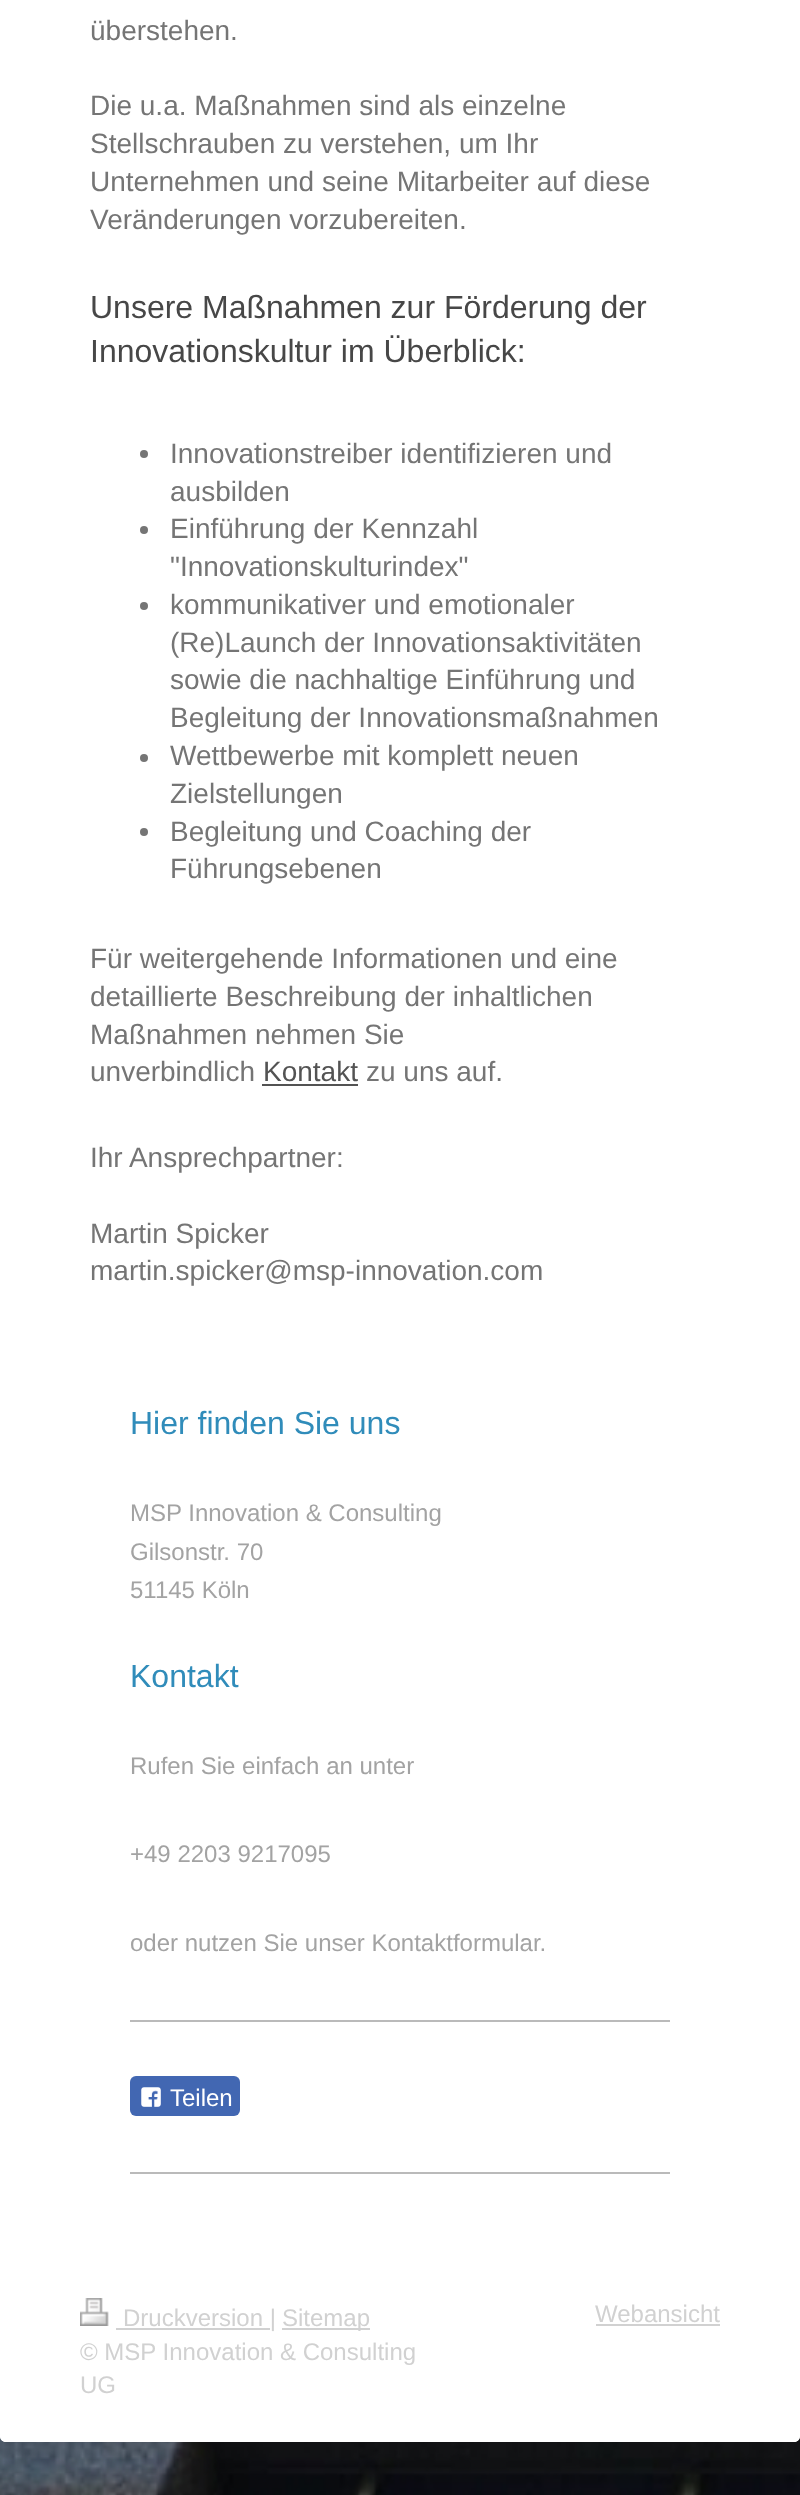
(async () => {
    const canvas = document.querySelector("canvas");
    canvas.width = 800;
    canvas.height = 2495;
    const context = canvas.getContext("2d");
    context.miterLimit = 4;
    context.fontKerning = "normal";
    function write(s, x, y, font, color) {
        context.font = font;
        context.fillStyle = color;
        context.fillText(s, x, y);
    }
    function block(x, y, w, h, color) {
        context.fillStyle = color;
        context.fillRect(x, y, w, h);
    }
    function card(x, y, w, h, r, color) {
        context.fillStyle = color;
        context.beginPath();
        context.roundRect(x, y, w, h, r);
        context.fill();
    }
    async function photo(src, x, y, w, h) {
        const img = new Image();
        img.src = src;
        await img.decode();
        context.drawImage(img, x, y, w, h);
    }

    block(0, 0, 800, 2495, "rgb(255, 255, 255)");
    await photo("media/1.png", 0, 2436, 800, 59);
    context.beginPath();
    context.moveTo(0, -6);
    context.lineTo(800, -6);
    context.lineTo(800, 2436);
    context.bezierCurveTo(800, 2439.5, 797.5, 2442, 794, 2442);
    context.lineTo(6, 2442);
    context.bezierCurveTo(2.5, 2442, 0, 2439.5, 0, 2436);
    context.closePath();
    context.fill();
    write("überstehen.", 90, 40, "28px Liberation Sans", "rgb(117, 117, 117)");
    write("Die u.a. Maßnahmen sind als einzelne", 90, 115, "28px Liberation Sans", "rgb(117, 117, 117)");
    write("Stellschrauben zu verstehen, um Ihr", 90, 153, "28px Liberation Sans", "rgb(117, 117, 117)");
    write("Unternehmen und seine Mitarbeiter auf diese", 90, 191, "28px Liberation Sans", "rgb(117, 117, 117)");
    write("Veränderungen vorzubereiten.", 90, 229, "28px Liberation Sans", "rgb(117, 117, 117)");
    write("Unsere Maßnahmen zur Förderung der", 90, 318, "32px Liberation Sans", "rgb(71, 71, 71)");
    write("Innovationskultur im Überblick:", 90, 362, "32px Liberation Sans", "rgb(71, 71, 71)");
    context.fillStyle = "rgb(117, 117, 117)";
    context.beginPath();
    context.arc(144, 454, 4, 0, Math.PI * 2);
    context.fill();
    write("Innovationstreiber identifizieren und", 170, 463, "28px Liberation Sans", "rgb(117, 117, 117)");
    write("ausbilden", 170, 501, "28px Liberation Sans", "rgb(117, 117, 117)");
    context.beginPath();
    context.arc(144, 530, 4, 0, Math.PI * 2);
    context.fill();
    write("Einführung der Kennzahl", 170, 538, "28px Liberation Sans", "rgb(117, 117, 117)");
    write("\"Innovationskulturindex\"", 170, 576, "28px Liberation Sans", "rgb(117, 117, 117)");
    context.beginPath();
    context.arc(144, 606, 4, 0, Math.PI * 2);
    context.fill();
    write("kommunikativer und emotionaler", 170, 614, "28px Liberation Sans", "rgb(117, 117, 117)");
    write("(Re)Launch der Innovationsaktivitäten", 170, 652, "28px Liberation Sans", "rgb(117, 117, 117)");
    write("sowie die nachhaltige Einführung und", 170, 689, "28px Liberation Sans", "rgb(117, 117, 117)");
    write("Begleitung der Innovationsmaßnahmen", 170, 727, "28px Liberation Sans", "rgb(117, 117, 117)");
    context.beginPath();
    context.arc(144, 758, 4, 0, Math.PI * 2);
    context.fill();
    write("Wettbewerbe mit komplett neuen", 170, 765, "28px Liberation Sans", "rgb(117, 117, 117)");
    write("Zielstellungen", 170, 803, "28px Liberation Sans", "rgb(117, 117, 117)");
    context.beginPath();
    context.arc(144, 832, 4, 0, Math.PI * 2);
    context.fill();
    write("Begleitung und Coaching der", 170, 841, "28px Liberation Sans", "rgb(117, 117, 117)");
    write("Führungsebenen", 170, 878, "28px Liberation Sans", "rgb(117, 117, 117)");
    write("Für weitergehende Informationen und eine", 90, 968, "28px Liberation Sans", "rgb(117, 117, 117)");
    write("detaillierte Beschreibung der inhaltlichen", 90, 1006, "28px Liberation Sans", "rgb(117, 117, 117)");
    write("Maßnahmen nehmen Sie", 90, 1044, "28px Liberation Sans", "rgb(117, 117, 117)");
    write("unverbindlich", 90, 1081, "28px Liberation Sans", "rgb(117, 117, 117)");
    write("Kontakt", 263, 1081, "28px Liberation Sans", "rgb(83, 83, 83)");
    block(262, 1084, 96, 2, "rgb(83, 83, 83)");
    write("zu uns auf.", 366, 1081, "28px Liberation Sans", "rgb(117, 117, 117)");
    write("Ihr Ansprechpartner:", 90, 1167, "28px Liberation Sans", "rgb(117, 117, 117)");
    write("Martin Spicker", 90, 1243, "28px Liberation Sans", "rgb(117, 117, 117)");
    write("martin.spicker@msp-innovation.com", 90, 1280, "28px Liberation Sans", "rgb(117, 117, 117)");
    write("Hier finden Sie uns", 130, 1434, "32px Liberation Sans", "rgb(48, 140, 186)");
    write("MSP Innovation & Consulting", 130, 1521, "24px Liberation Sans", "rgb(163, 163, 163)");
    write("Gilsonstr. 70", 130, 1560, "24px Liberation Sans", "rgb(163, 163, 163)");
    write("51145 Köln", 130, 1598, "24px Liberation Sans", "rgb(163, 163, 163)");
    write("Kontakt", 130, 1687, "32px Liberation Sans", "rgb(48, 140, 186)");
    write("Rufen Sie einfach an unter", 130, 1774, "24px Liberation Sans", "rgb(163, 163, 163)");
    write("+49 2203 9217095", 130, 1862, "24px Liberation Sans", "rgb(163, 163, 163)");
    write("oder nutzen Sie unser Kontaktformular.", 130, 1951, "24px Liberation Sans", "rgb(163, 163, 163)");
    block(130, 2020, 540, 2, "rgb(186, 186, 186)");
    card(130, 2076, 110, 40, 6, "rgb(66, 103, 178)");
    await photo("media/2.png", 141, 2087, 20, 20);
    write("Teilen", 170, 2106, "24px Liberation Sans", "rgb(255, 255, 255)");
    block(130, 2172, 540, 2, "rgb(186, 186, 186)");
    context.fillStyle = "rgb(255, 255, 255)";
    context.beginPath();
    context.roundRect(0, 2258, 800, 184, [0, 0, 6, 6]);
    context.fill();
    await photo("media/3.png", 80, 2298, 29, 28);
    block(116, 2328, 154, 2, "rgb(209, 209, 209)");
    write("Druckversion |", 123, 2326, "24px Liberation Sans", "rgb(209, 209, 209)");
    block(282, 2328, 88, 2, "rgb(209, 209, 209)");
    write("Sitemap", 282, 2326, "24px Liberation Sans", "rgb(209, 209, 209)");
    write("© MSP Innovation & Consulting", 80, 2360, "24px Liberation Sans", "rgb(209, 209, 209)");
    write("UG", 80, 2393, "24px Liberation Sans", "rgb(209, 209, 209)");
    write("Webansicht", 595, 2322, "24px Liberation Sans", "rgb(209, 209, 209)");
    block(596, 2324, 124, 2, "rgb(209, 209, 209)");
})();
